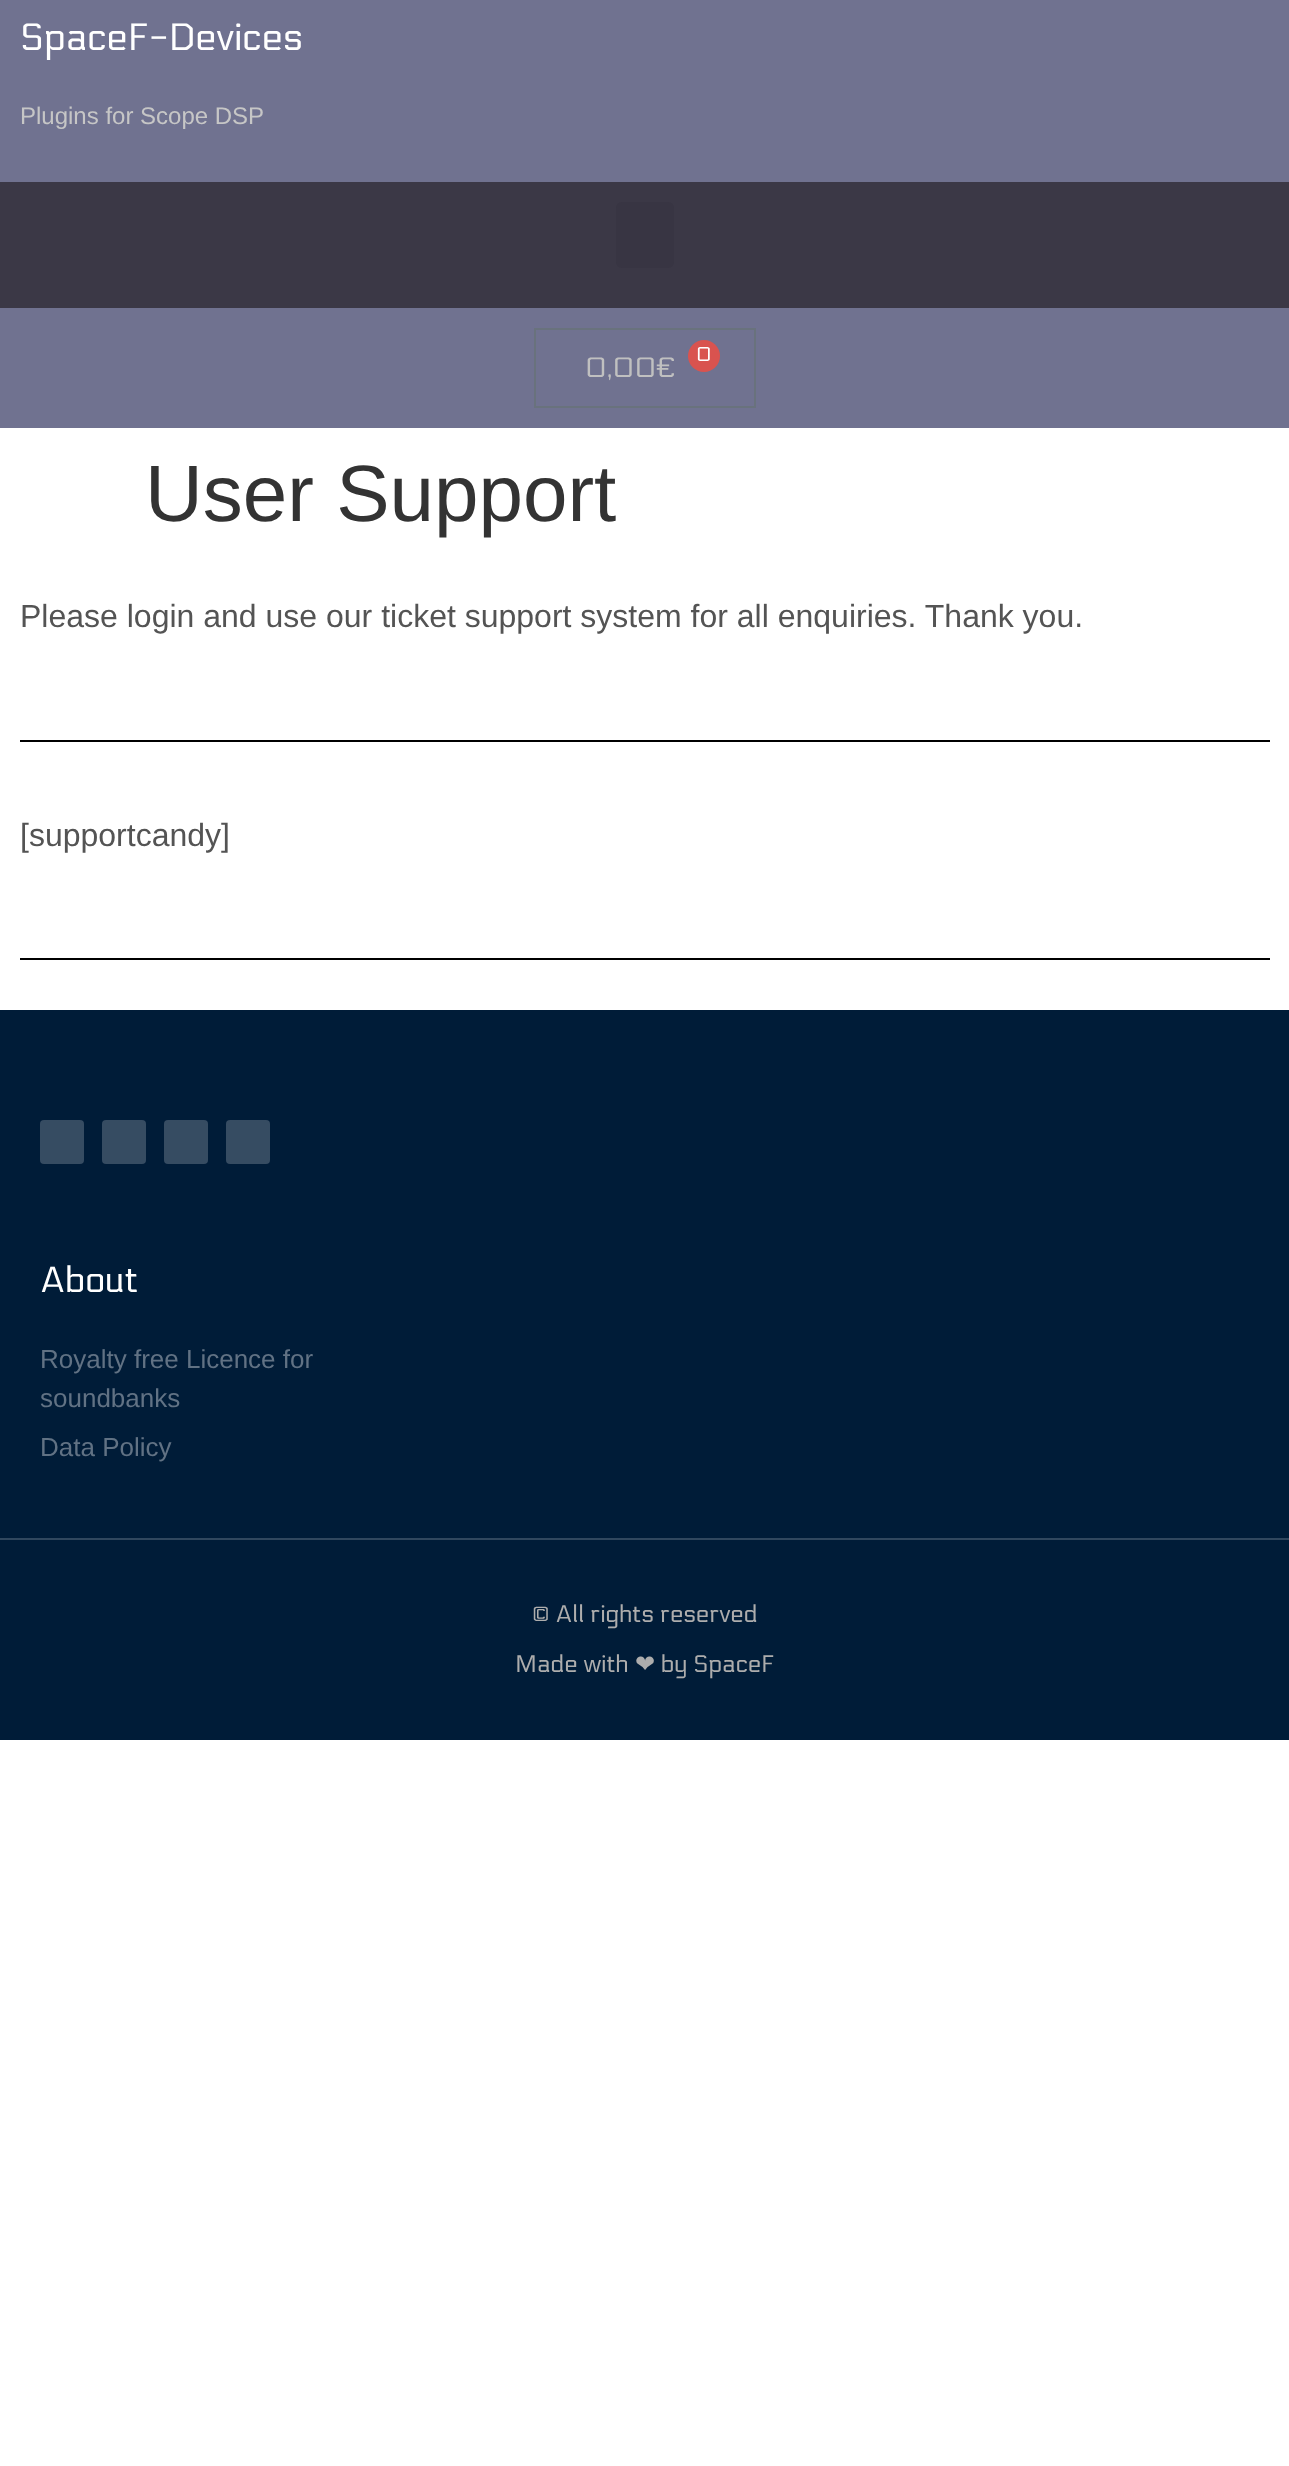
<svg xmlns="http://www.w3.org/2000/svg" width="1289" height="2466">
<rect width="100%" height="100%" fill="#fff"/>
<rect width="1289" height="428" fill="#707290"/>
<text x="20" y="50" style="font-family:Electrolize;font-size:38px;fill:#fff">SpaceF-Devices</text>
<text x="20" y="124" style="font-family:Liberation Sans;font-size:24px;fill:#c6c6c6">Plugins for Scope DSP</text>
<rect y="182" width="1289" height="126" fill="#3b3846"/>
<rect x="616" y="202" width="58" height="66" rx="6" fill="#383543"/>
<rect x="535" y="329" width="220" height="78" fill="none" stroke="#69727d" stroke-width="2"/>
<circle cx="704" cy="356" r="16" fill="#d9534f"/>
<text x="696" y="361" style="font-family:Electrolize;font-size:20px;fill:#fff">0</text>
<text x="585" y="377" style="font-family:Electrolize;font-size:28px;fill:#c0c0c0">0,00€</text>
<text x="145" y="521" style="font-family:Liberation Sans;font-size:80px;fill:#333">User Support</text>
<text x="20" y="627" style="font-family:Liberation Sans;font-size:32px;fill:#545454">Please login and use our ticket support system for all enquiries. Thank you.</text>
<rect x="20" y="740" width="1250" height="2" fill="#000"/>
<text x="20" y="846" style="font-family:Liberation Sans;font-size:32px;fill:#545454">[supportcandy]</text>
<rect x="20" y="958" width="1250" height="2" fill="#000"/>
<rect y="1010" width="1289" height="528" fill="#001c38"/>
<rect x="40" y="1120" width="44" height="44" rx="4" fill="#364c62"/>
<rect x="102" y="1120" width="44" height="44" rx="4" fill="#364c62"/>
<rect x="164" y="1120" width="44" height="44" rx="4" fill="#364c62"/>
<rect x="226" y="1120" width="44" height="44" rx="4" fill="#364c62"/>
<text x="40" y="1292" style="font-family:Electrolize;font-size:36px;fill:#fff">About</text>
<text x="40" y="1368" style="font-family:Liberation Sans;font-size:26px;fill:#617284">Royalty free Licence for</text>
<text x="40" y="1407" style="font-family:Liberation Sans;font-size:26px;fill:#617284">soundbanks</text>
<text x="40" y="1456" style="font-family:Liberation Sans;font-size:26px;fill:#617284">Data Policy</text>
<rect y="1540" width="1289" height="200" fill="#001c38"/>
<rect y="1538" width="1289" height="2" fill="#30475e"/>
<text x="532" y="1622" style="font-family:Electrolize;font-size:24px;fill:#adadad">© All rights reserved</text>
<text x="515" y="1672" style="font-family:Electrolize;font-size:24px;fill:#adadad">Made with</text>
<text x="635" y="1672" style="font-family:DejaVu Sans;font-size:24px;fill:#adadad">❤</text>
<text x="661" y="1672" style="font-family:Electrolize;font-size:24px;fill:#adadad">by SpaceF</text>
</svg>
